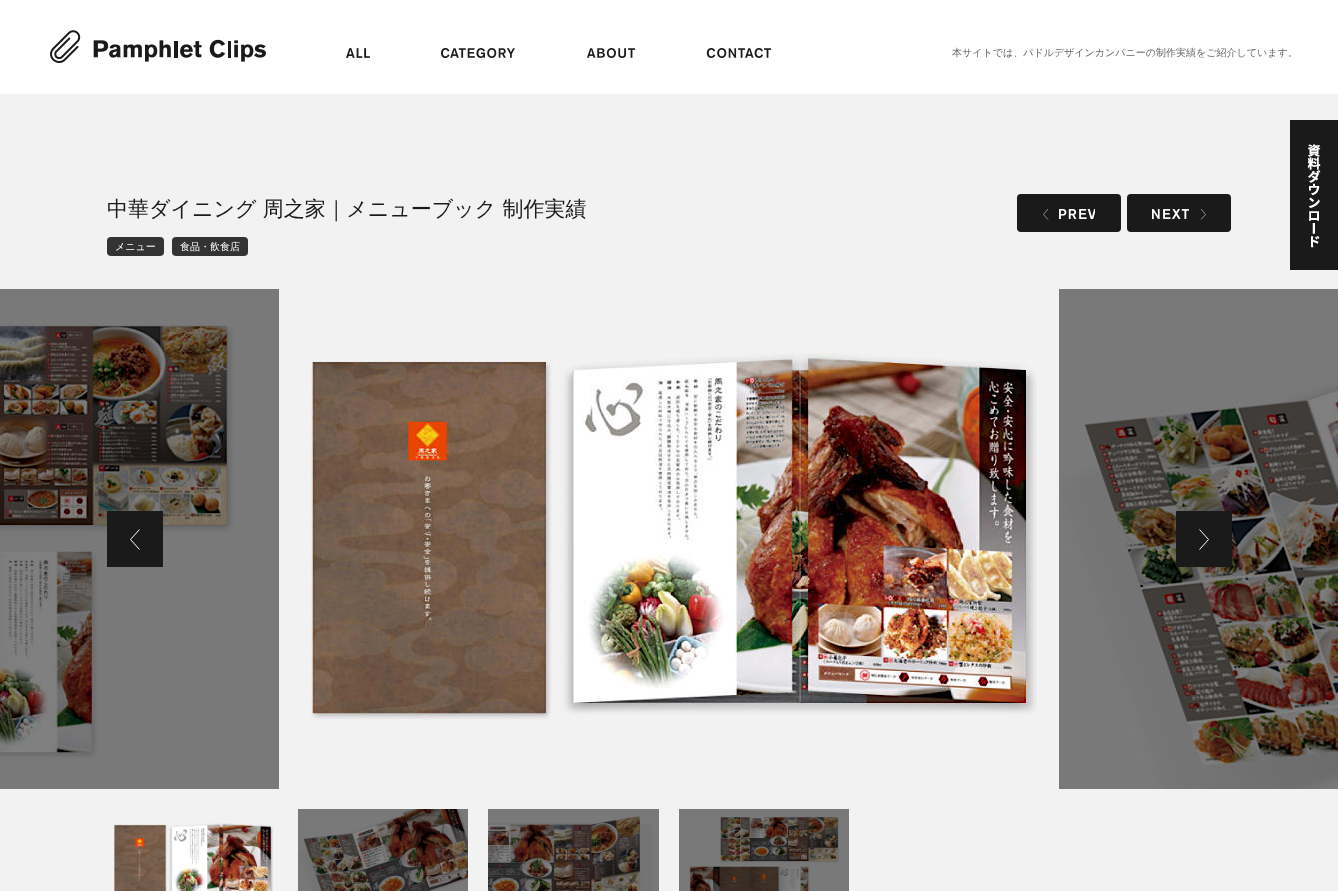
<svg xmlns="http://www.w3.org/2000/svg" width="1338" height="891">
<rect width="100%" height="100%" fill="#fff"/>
<image x="50" y="30" width="216" height="33" href="media/1.png"/>
<image x="346" y="48" width="24" height="10" href="media/2.png"/>
<image x="441" y="48" width="74" height="10" href="media/3.png"/>
<image x="587" y="48" width="49" height="10" href="media/4.png"/>
<image x="706" y="48" width="66" height="10" href="media/5.png"/>
<text x="952" y="56" style="font-family:WenQuanYi Zen Hei;font-size:10px;font-weight:500;fill:#666">本サイトでは、パドルデザインカンパニーの制作実績をご紹介しています。</text>
<rect y="94" width="1338" height="797" fill="#f2f2f2"/>
<rect x="679" y="809" width="170" height="82" fill="#797979"/>
<rect x="488" y="809" width="171" height="82" fill="#797979"/>
<rect x="1059" y="289" width="279" height="500" fill="#797979"/>
<rect y="289" width="279" height="500" fill="#797979"/>
<text x="107" y="216" style="font-family:WenQuanYi Zen Hei;font-size:21px;font-weight:500;fill:#1a1a1a">中華ダイニング 周之家｜メニューブック 制作実績</text>
<rect x="107" y="237" width="57" height="19" rx="4" fill="#333"/>
<text x="115" y="250" style="font-family:WenQuanYi Zen Hei;font-size:10px;font-weight:500;fill:#fff">メニュー</text>
<rect x="172" y="237" width="76" height="19" rx="4" fill="#333"/>
<text x="180" y="250" style="font-family:WenQuanYi Zen Hei;font-size:10px;font-weight:500;fill:#fff">食品・飲食店</text>
<rect x="1017" y="194" width="104" height="38" rx="4" fill="#1a1a1a"/>
<path d="M1048 209l-4.5 5.5l4.5 5" fill="none" stroke="#fff" stroke-width="0.5"/>
<image x="1059" y="209" width="36" height="10" href="media/6.png"/>
<rect x="1127" y="194" width="104" height="38" rx="4" fill="#1a1a1a"/>
<image x="1152" y="209" width="37" height="10" href="media/7.png"/>
<path d="M1201 219.5l4.5-5l-4.5-5.5" fill="none" stroke="#fff" stroke-width="0.5"/>
<image x="0" y="321" width="234" height="438" href="media/8.png"/>
<image x="311" y="353" width="726" height="368" href="media/9.png"/>
<image x="1062" y="382" width="276" height="407" href="media/10.png"/>
<rect x="107" y="511" width="56" height="56" fill="#1a1a1a"/>
<path d="M139.5 529.5l-9 10l9 10" fill="none" stroke="#fff"/>
<rect x="1176" y="511" width="56" height="56" fill="#1a1a1a"/>
<path d="M1199.5 549.5l9-10l-9-10" fill="none" stroke="#fff"/>
<image x="114" y="823" width="159" height="68" href="media/11.png"/>
<image x="298" y="809" width="170" height="82" href="media/12.png"/>
<image x="488" y="816" width="166" height="75" href="media/13.png"/>
<image x="689" y="816" width="150" height="75" href="media/14.png"/>
<image x="1290" y="120" width="48" height="150" href="media/15.png"/>
</svg>
